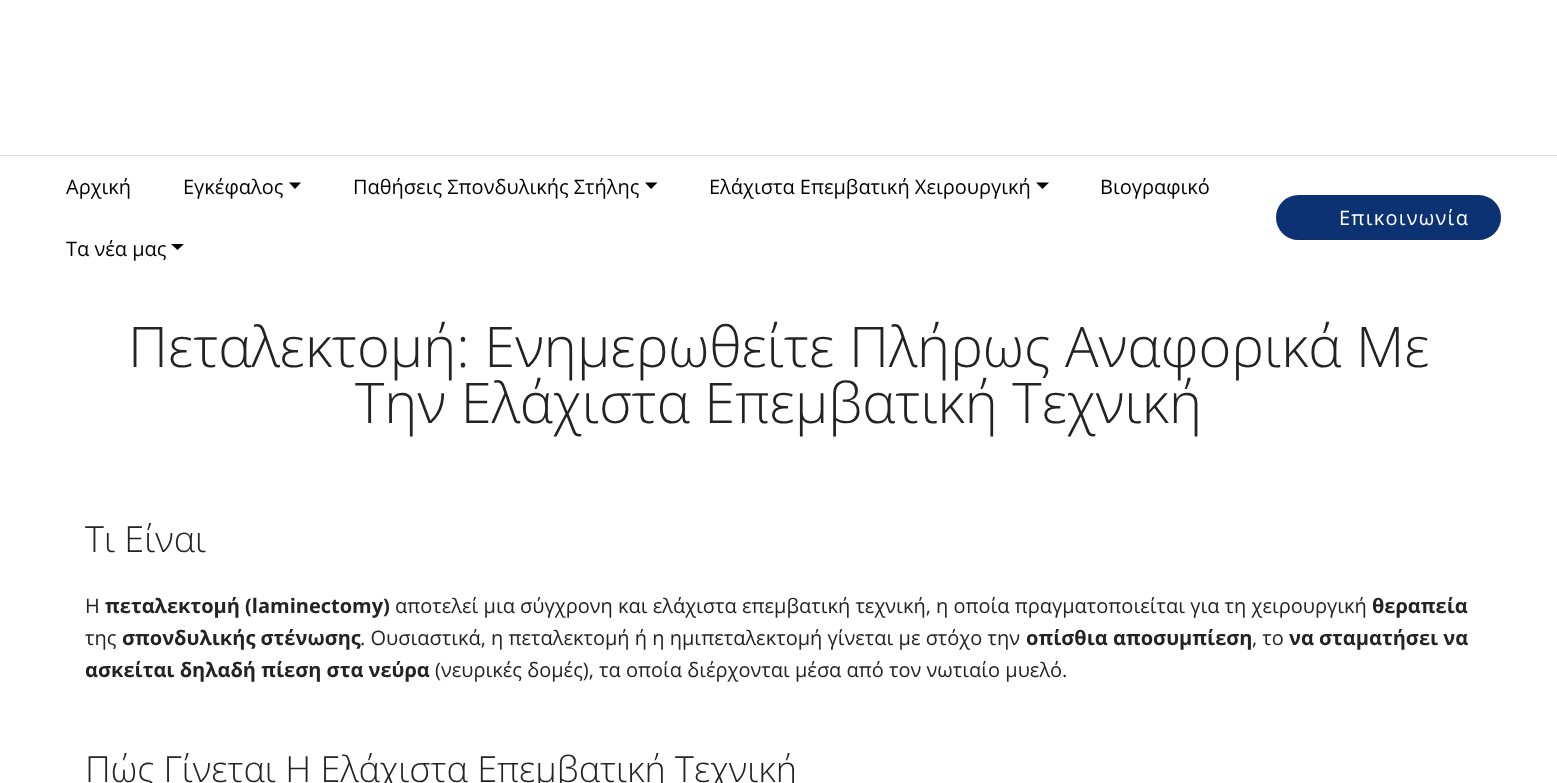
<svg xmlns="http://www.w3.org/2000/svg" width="1557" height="783">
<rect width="100%" height="100%" fill="#fff"/>
<rect y="155" width="1557" height="1" fill="#e0e0e0"/>
<text x="66" y="194" style="font-family:Open Sans;font-size:20px;fill:#000">Αρχική</text>
<text x="183" y="194" style="font-family:Open Sans;font-size:20px;fill:#000">Εγκέφαλος</text>
<path d="M289 182.5h12l-6 6.5z" fill="#000"/>
<text x="353" y="194" style="font-family:Open Sans;font-size:20px;fill:#000">Παθήσεις Σπονδυλικής Στήλης</text>
<path d="M645 182.5h12.5l-6.5 6.5z" fill="#000"/>
<text x="709" y="194" style="font-family:Open Sans;font-size:20px;fill:#000">Ελάχιστα Επεμβατική Χειρουργική</text>
<path d="M1036 182.5h13l-6.5 6.5z" fill="#000"/>
<text x="1100" y="194" style="font-family:Open Sans;font-size:20px;fill:#000">Βιογραφικό</text>
<text x="66" y="256" style="font-family:Open Sans;font-size:20px;fill:#000">Τα νέα μας</text>
<path d="M171 244h13l-6.5 6z" fill="#000"/>
<rect x="1277.5" y="196.5" width="222" height="42" rx="21" fill="#0c3274" stroke="#0c3274" stroke-width="3"/>
<text x="1339" y="225" style="font-family:Open Sans;font-size:20px;letter-spacing:1.25px;fill:#fff">Επικοινωνία</text>
<text x="128" y="367" style="font-family:Open Sans;font-size:56px;font-weight:300;fill:#232323">Πεταλεκτομή: Ενημερωθείτε Πλήρως Αναφορικά Με</text>
<text x="355" y="423" style="font-family:Open Sans;font-size:56px;font-weight:300;fill:#232323">Την Ελάχιστα Επεμβατική Τεχνική</text>
<text x="85" y="552" style="font-family:Open Sans;font-size:36px;font-weight:300;fill:#232323">Τι Είναι</text>
<text x="85" y="613" style="font-family:Open Sans;font-size:20px;fill:#232323">Η</text>
<text x="105" y="613" style="font-family:Open Sans;font-size:20px;font-weight:bold;fill:#232323">πεταλεκτομή (laminectomy)</text>
<text x="395" y="613" style="font-family:Open Sans;font-size:20px;fill:#232323">αποτελεί μια σύγχρονη και ελάχιστα επεμβατική τεχνική, η οποία πραγματοποιείται για τη χειρουργική</text>
<text x="1372" y="613" style="font-family:Open Sans;font-size:20px;font-weight:bold;fill:#232323">θεραπεία</text>
<text x="85" y="645" style="font-family:Open Sans;font-size:20px;fill:#232323">της</text>
<text x="122" y="645" style="font-family:Open Sans;font-size:20px;font-weight:bold;fill:#232323">σπονδυλικής στένωσης</text>
<text x="360" y="645" style="font-family:Open Sans;font-size:20px;fill:#232323">. Ουσιαστικά, η πεταλεκτομή ή η ημιπεταλεκτομή γίνεται με στόχο την</text>
<text x="1026" y="645" style="font-family:Open Sans;font-size:20px;font-weight:bold;fill:#232323">οπίσθια αποσυμπίεση</text>
<text x="1252" y="645" style="font-family:Open Sans;font-size:20px;fill:#232323">, το</text>
<text x="1289" y="645" style="font-family:Open Sans;font-size:20px;font-weight:bold;fill:#232323">να σταματήσει να</text>
<text x="85" y="677" style="font-family:Open Sans;font-size:20px;font-weight:bold;fill:#232323">ασκείται δηλαδή πίεση στα νεύρα</text>
<text x="435" y="677" style="font-family:Open Sans;font-size:20px;fill:#232323">(νευρικές δομές), τα οποία διέρχονται μέσα από τον νωτιαίο μυελό.</text>
<text x="85" y="782" style="font-family:Open Sans;font-size:36px;font-weight:300;fill:#232323">Πώς Γίνεται Η Ελάχιστα Επεμβατική Τεχνική</text>
</svg>
